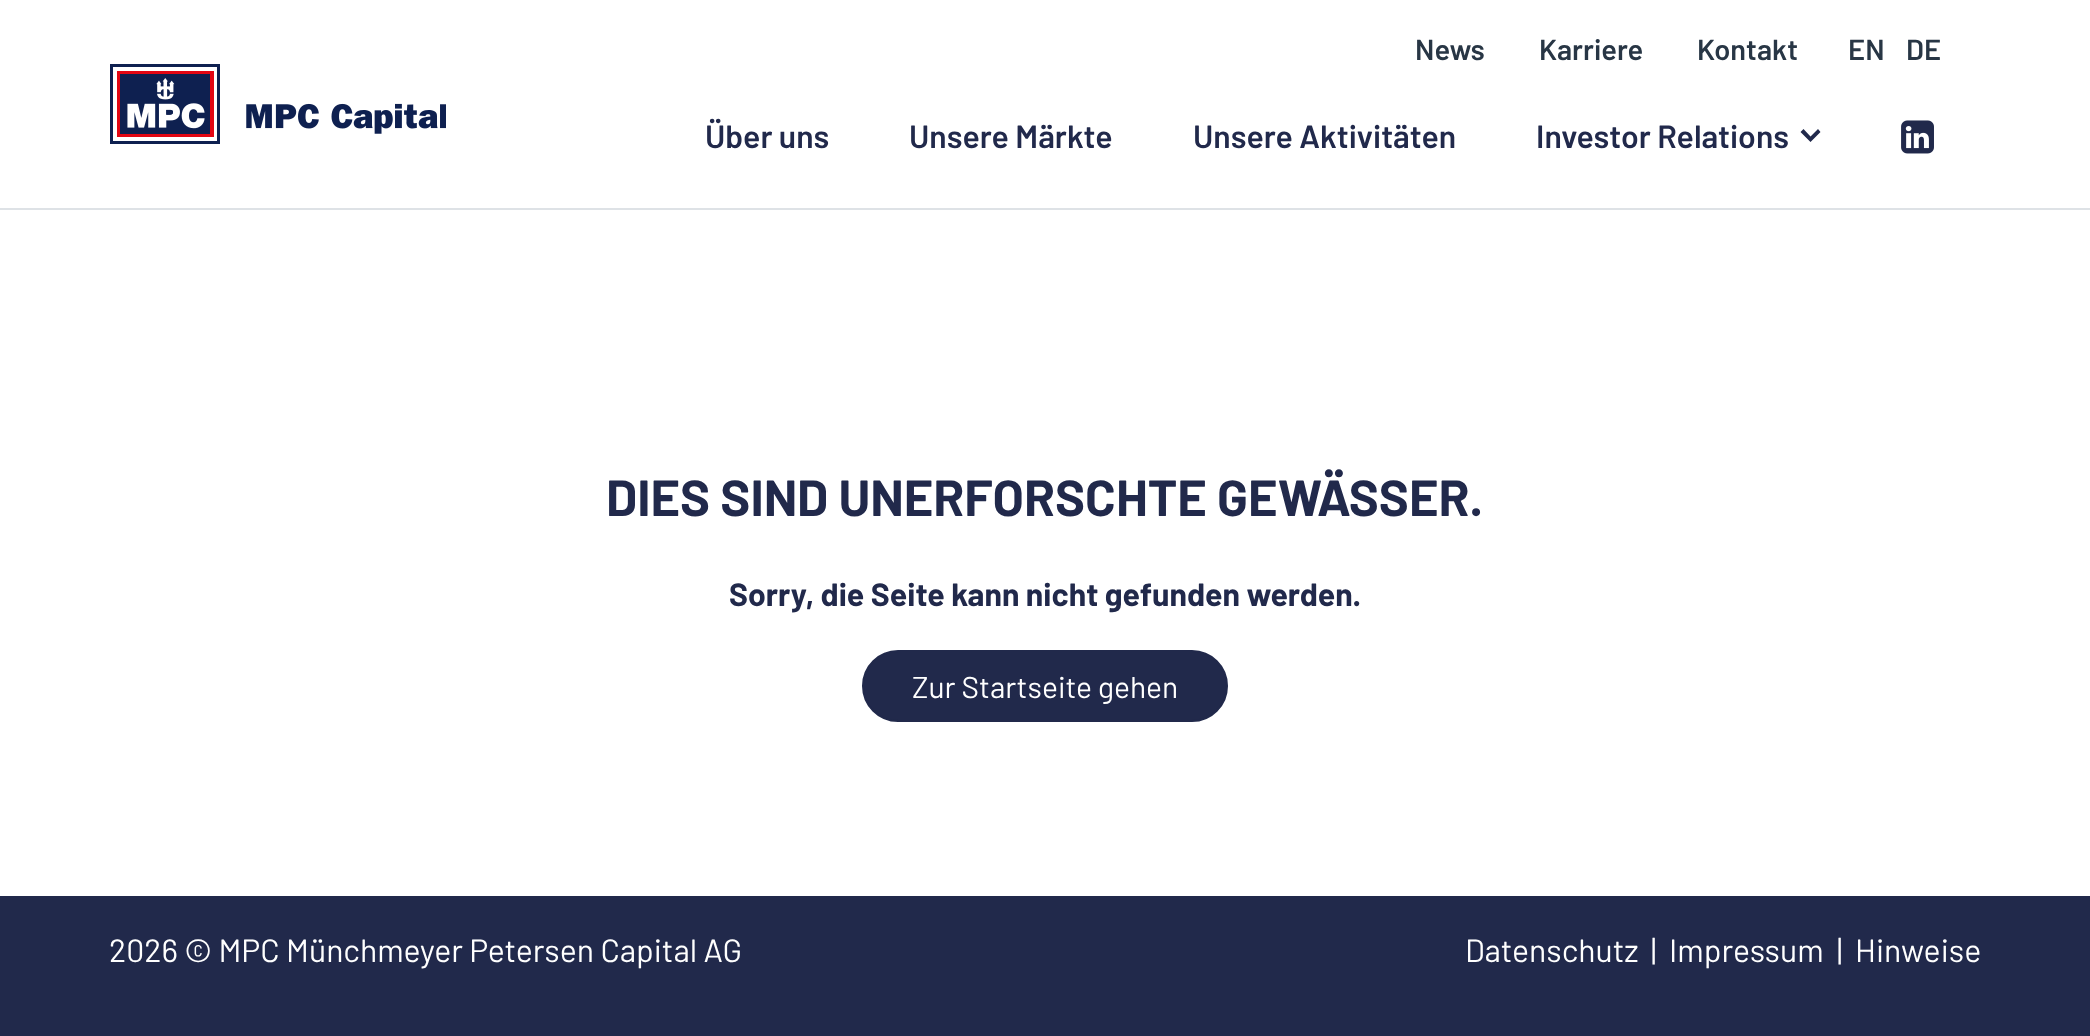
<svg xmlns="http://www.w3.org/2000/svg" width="2090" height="1036">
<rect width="100%" height="100%" fill="#fff"/>
<rect y="208" width="2090" height="2" fill="#dee2e6"/>
<image x="110" y="64" width="336" height="80" href="media/1.png"/>
<text x="1415" y="60" style="font-family:Barlow;font-size:29px;font-weight:600;fill:#283645">News</text>
<text x="1539" y="60" style="font-family:Barlow;font-size:29px;font-weight:600;fill:#283645">Karriere</text>
<text x="1697" y="60" style="font-family:Barlow;font-size:29px;font-weight:600;fill:#283645">Kontakt</text>
<text x="1848" y="60" style="font-family:Barlow;font-size:29px;font-weight:600;fill:#283645">EN</text>
<text x="1906" y="60" style="font-family:Barlow;font-size:29px;font-weight:600;fill:#283645">DE</text>
<text x="705" y="148" style="font-family:Barlow;font-size:32px;font-weight:600;fill:#21294b">Über uns</text>
<text x="909" y="148" style="font-family:Barlow;font-size:32px;font-weight:600;fill:#21294b">Unsere Märkte</text>
<text x="1193" y="148" style="font-family:Barlow;font-size:32px;font-weight:600;fill:#21294b">Unsere Aktivitäten</text>
<text x="1536" y="148" style="font-family:Barlow;font-size:32px;font-weight:600;fill:#21294b">Investor Relations</text>
<path d="M1818 129l2.5 3l-10 10l-10-10l3-3l7 7.5z" fill="#21294b"/>
<image x="1901" y="120" width="33" height="34" href="media/2.png"/>
<text x="606" y="516" style="font-family:Barlow;font-size:50.6px;font-weight:bold;fill:#21294b">DIES SIND UNERFORSCHTE GEWÄSSER.</text>
<text x="729" y="606" style="font-family:Barlow;font-size:32px;font-weight:bold;fill:#21294b">Sorry, die Seite kann nicht gefunden werden.</text>
<rect x="863" y="651" width="364" height="70" rx="35" fill="#21294b" stroke="#21294b" stroke-width="2"/>
<text x="912" y="698" style="font-family:Barlow;font-size:30px;fill:#fff">Zur Startseite gehen</text>
<rect y="896" width="2090" height="140" fill="#21294b"/>
<text x="109" y="962" style="font-family:Barlow;font-size:32px;fill:#fff">2026 © MPC Münchmeyer Petersen Capital AG</text>
<text x="1465" y="962" style="font-family:Barlow;font-size:32px;fill:#fff">Datenschutz</text>
<text x="1651" y="962" style="font-family:Barlow;font-size:32px;fill:#fff">|</text>
<text x="1669" y="962" style="font-family:Barlow;font-size:32px;fill:#fff">Impressum</text>
<text x="1837" y="962" style="font-family:Barlow;font-size:32px;fill:#fff">|</text>
<text x="1855" y="962" style="font-family:Barlow;font-size:32px;fill:#fff">Hinweise</text>
</svg>
